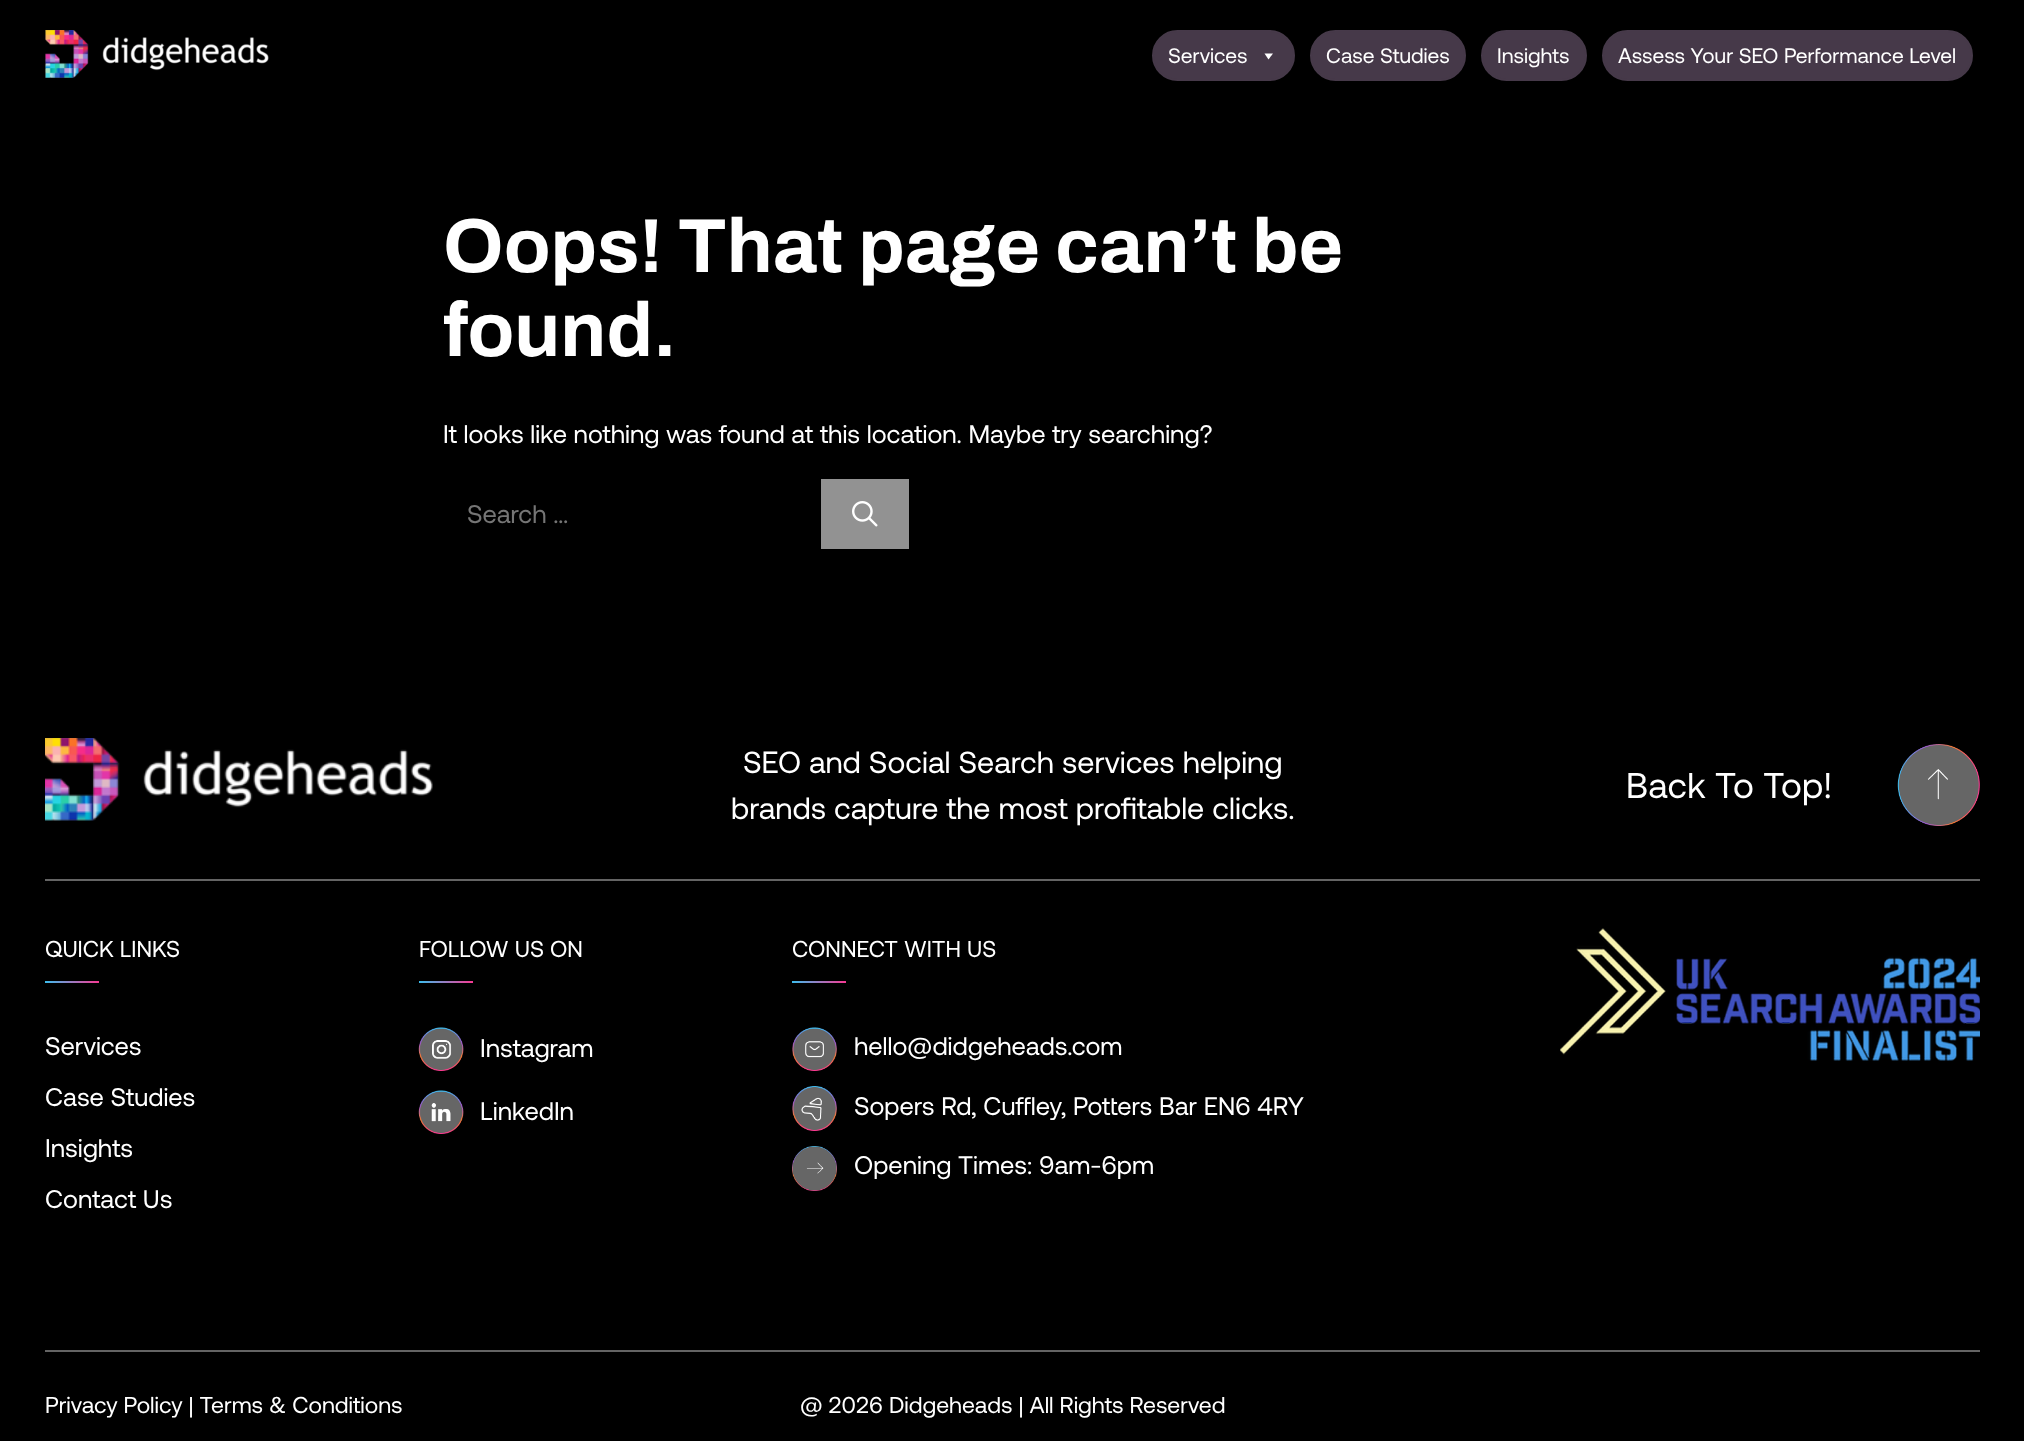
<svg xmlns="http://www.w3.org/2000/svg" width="2024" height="1441">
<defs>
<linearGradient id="g1" gradientUnits="userSpaceOnUse" x1="45" y1="982" x2="99" y2="982"><stop offset="0" stop-color="#3cbded"/><stop offset="1" stop-color="#f83993"/></linearGradient>
<linearGradient id="g2" gradientUnits="userSpaceOnUse" x1="419" y1="982" x2="473" y2="982"><stop offset="0" stop-color="#3cbded"/><stop offset="1" stop-color="#f83993"/></linearGradient>
<linearGradient id="g3" gradientUnits="userSpaceOnUse" x1="792" y1="982" x2="846" y2="982"><stop offset="0" stop-color="#3cbded"/><stop offset="1" stop-color="#f83993"/></linearGradient>
</defs>
<rect width="100%" height="100%" fill="#000"/>
<image x="45" y="30" width="224" height="48" href="media/1.png"/>
<rect x="1153" y="31" width="141" height="49" rx="24.5" fill="#463949" stroke="#463949" stroke-width="2"/>
<text x="1168" y="63" style="font-family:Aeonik;font-size:21px;fill:#fff">Services</text>
<path d="M1273 53.5l-4.5 6l-4-6z" fill="#fff"/>
<rect x="1311" y="31" width="154" height="49" rx="24.5" fill="#463949" stroke="#463949" stroke-width="2"/>
<text x="1326" y="63" style="font-family:Aeonik;font-size:21px;fill:#fff">Case Studies</text>
<rect x="1482" y="31" width="104" height="49" rx="24.5" fill="#463949" stroke="#463949" stroke-width="2"/>
<text x="1497" y="63" style="font-family:Aeonik;font-size:21px;fill:#fff">Insights</text>
<rect x="1603" y="31" width="369" height="49" rx="24.5" fill="#463949" stroke="#463949" stroke-width="2"/>
<text x="1618" y="63" style="font-family:Aeonik;font-size:21px;fill:#fff">Assess Your SEO Performance Level</text>
<text x="443" y="272" style="font-family:Archivo;font-size:76.5px;font-weight:bold;fill:#fff">Oops! That page can’t be</text>
<text x="443" y="356" style="font-family:Archivo;font-size:76.5px;font-weight:bold;fill:#fff">found.</text>
<text x="443" y="443" style="font-family:Aeonik;font-size:25.5px;fill:#fff">It looks like nothing was found at this location. Maybe try searching?</text>
<text x="467" y="523" style="font-family:Aeonik;font-size:25.5px;fill:#757575">Search …</text>
<rect x="821" y="479" width="88" height="70" fill="#929292"/>
<image x="852" y="501" width="26" height="26" href="media/2.png"/>
<rect x="45" y="879" width="1935" height="2" fill="#646464"/>
<image x="45" y="738" width="388" height="83" href="media/3.png"/>
<text x="743" y="773" style="font-family:Aeonik;font-size:30.6px;fill:#fff">SEO and Social Search services helping</text>
<text x="731" y="819" style="font-family:Aeonik;font-size:30.6px;fill:#fff">brands capture the most profitable clicks.</text>
<text x="1626" y="798" style="font-family:Aeonik;font-size:35.75px;fill:#fff">Back To Top!</text>
<image x="1897" y="744" width="83" height="82" href="media/4.png"/>
<text x="45" y="957" style="font-family:Aeonik;font-size:23px;fill:#fff">QUICK LINKS</text>
<rect x="45" y="981" width="54" height="2" fill="url(#g1)"/>
<text x="45" y="1055" style="font-family:Aeonik;font-size:25.5px;fill:#fff">Services</text>
<text x="45" y="1106" style="font-family:Aeonik;font-size:25.5px;fill:#fff">Case Studies</text>
<text x="45" y="1157" style="font-family:Aeonik;font-size:25.5px;fill:#fff">Insights</text>
<text x="45" y="1208" style="font-family:Aeonik;font-size:25.5px;fill:#fff">Contact Us</text>
<text x="419" y="957" style="font-family:Aeonik;font-size:23px;fill:#fff">FOLLOW US ON</text>
<rect x="419" y="981" width="54" height="2" fill="url(#g2)"/>
<image x="418" y="1027" width="46" height="44" href="media/5.png"/>
<text x="480" y="1057" style="font-family:Aeonik;font-size:25.5px;fill:#fff">Instagram</text>
<image x="418" y="1090" width="46" height="44" href="media/6.png"/>
<text x="480" y="1120" style="font-family:Aeonik;font-size:25.5px;fill:#fff">LinkedIn</text>
<text x="792" y="957" style="font-family:Aeonik;font-size:23px;fill:#fff">CONNECT WITH US</text>
<rect x="792" y="981" width="54" height="2" fill="url(#g3)"/>
<image x="792" y="1027" width="45" height="44" href="media/7.png"/>
<text x="854" y="1055" style="font-family:Aeonik;font-size:25.5px;fill:#fff">hello@didgeheads.com</text>
<image x="792" y="1086" width="45" height="45" href="media/8.png"/>
<text x="854" y="1115" style="font-family:Aeonik;font-size:25.5px;fill:#fff">Sopers Rd, Cuffley, Potters Bar EN6 4RY</text>
<image x="792" y="1146" width="45" height="45" href="media/9.png"/>
<text x="854" y="1174" style="font-family:Aeonik;font-size:25.5px;fill:#fff">Opening Times: 9am-6pm</text>
<image x="1560" y="928" width="420" height="133" href="media/10.png"/>
<rect x="45" y="1350" width="1935" height="2" fill="#646464"/>
<text x="45" y="1413" style="font-family:Aeonik;font-size:23px;fill:#fff">Privacy Policy | Terms &amp; Conditions</text>
<text x="800" y="1413" style="font-family:Aeonik;font-size:23px;fill:#fff">@ 2026 Didgeheads | All Rights Reserved</text>
</svg>
